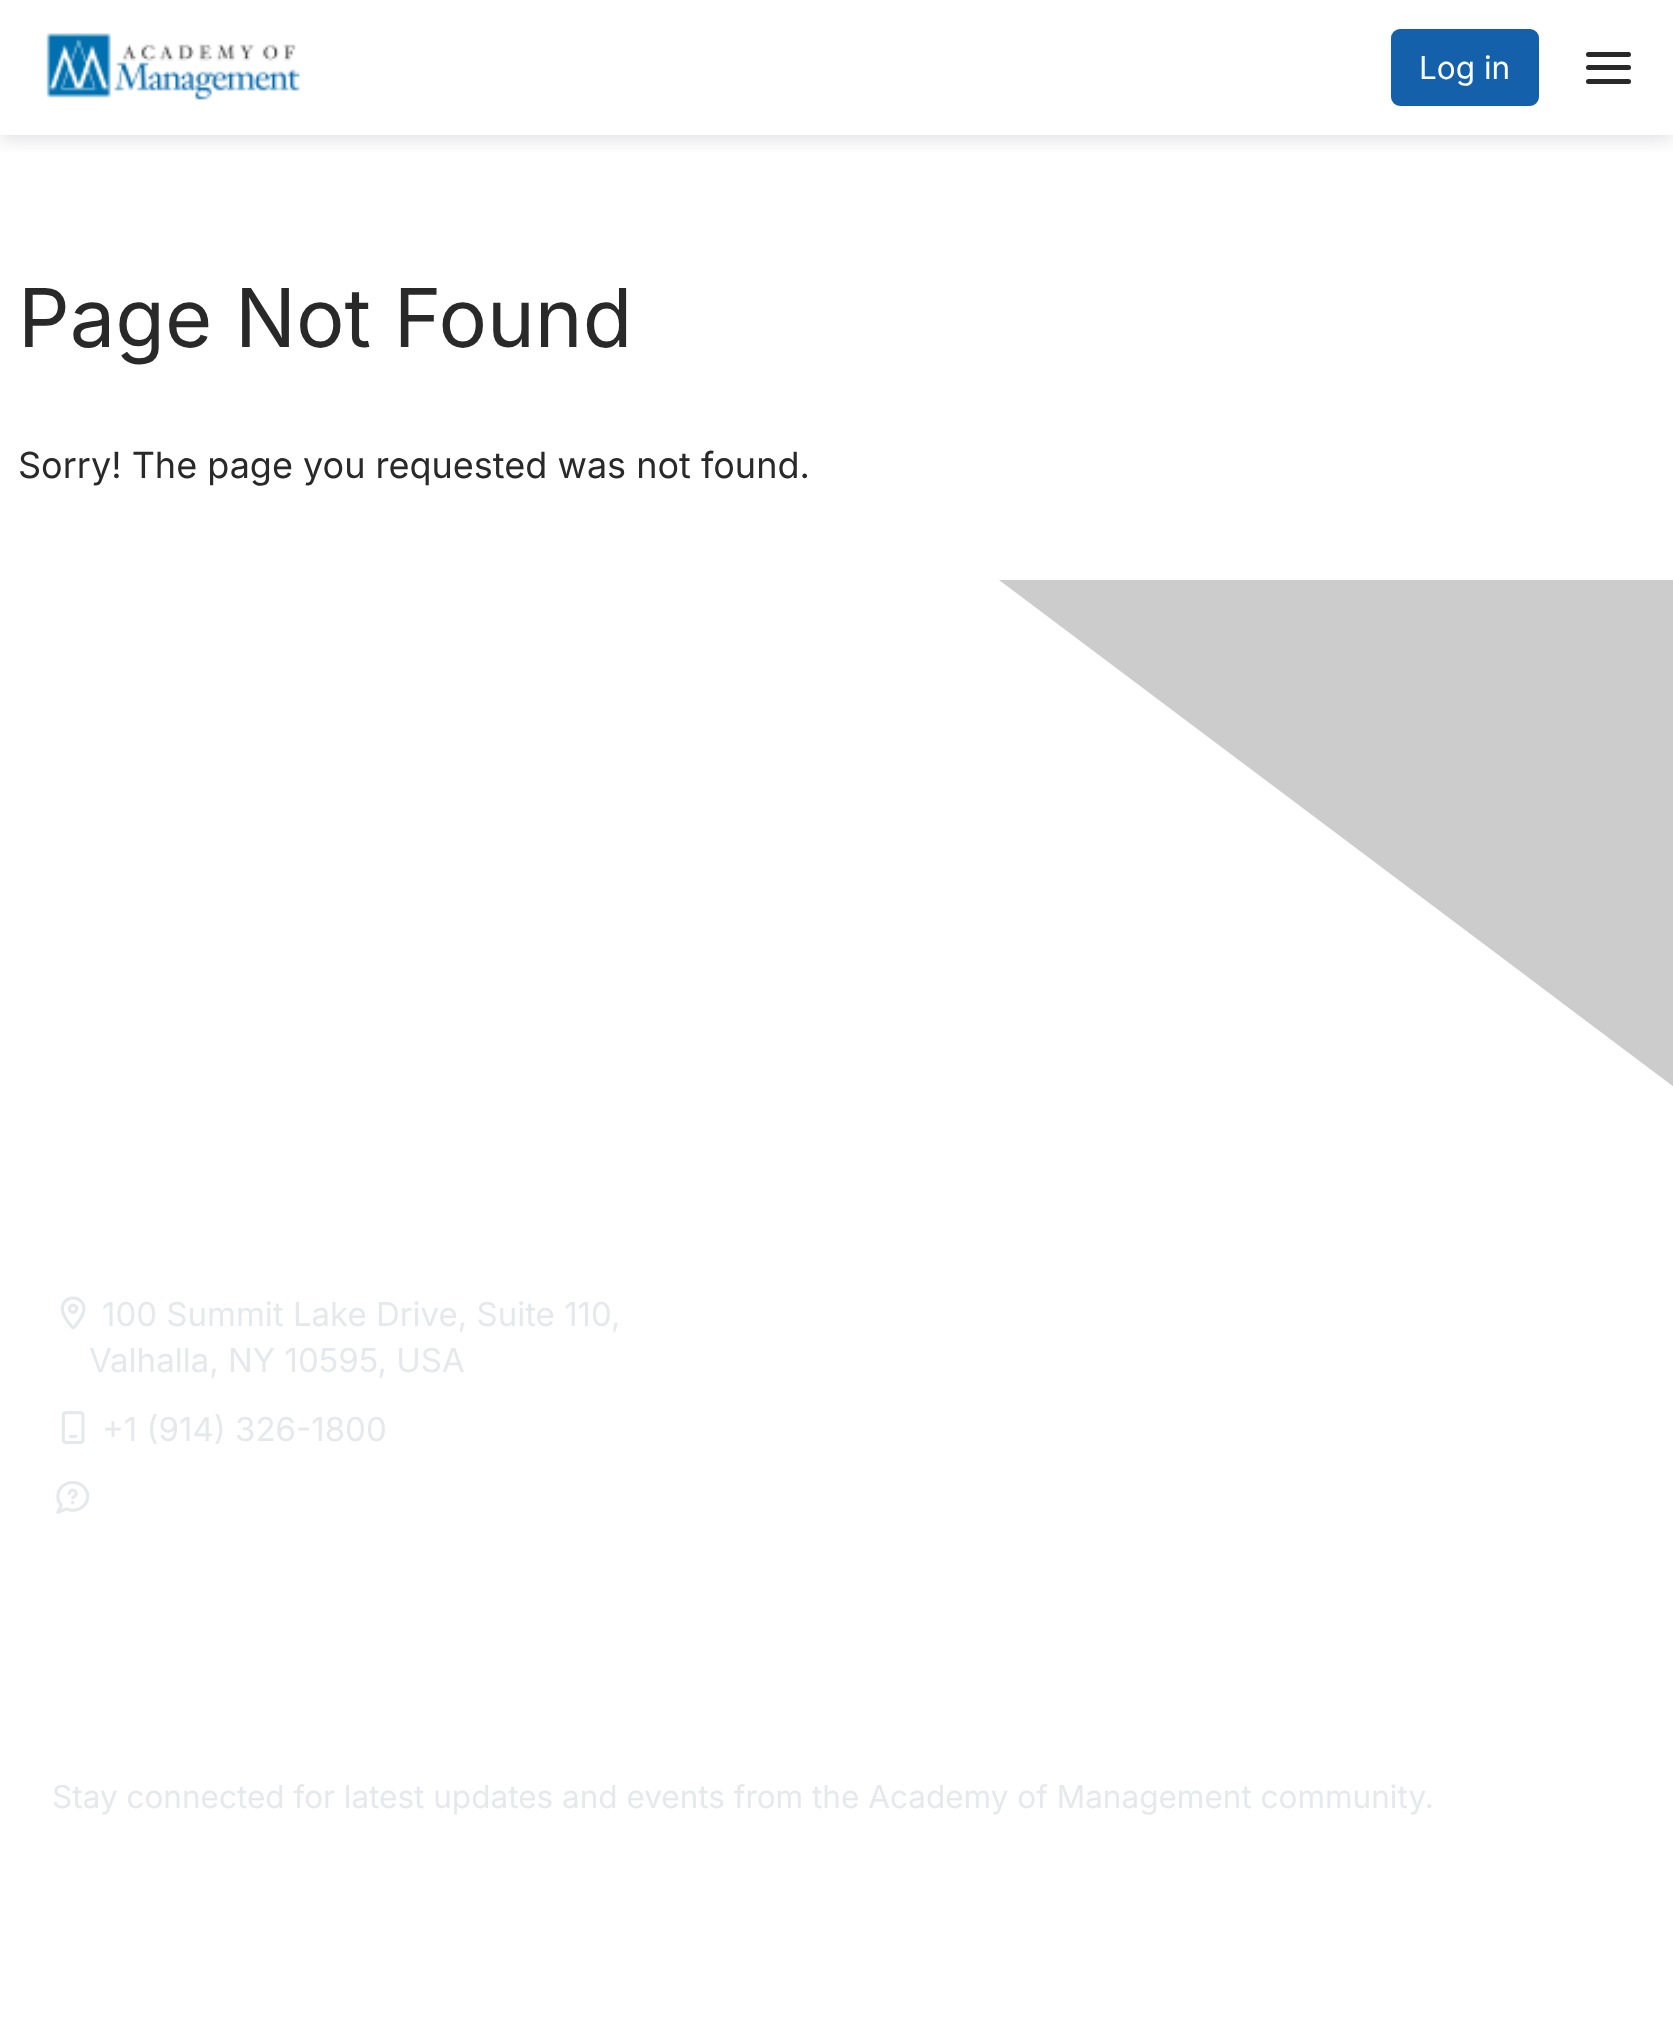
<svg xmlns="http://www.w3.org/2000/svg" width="1673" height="2026">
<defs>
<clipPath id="clip1"><rect x="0" y="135" width="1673" height="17"/></clipPath>
</defs>
<rect width="100%" height="100%" fill="#fff"/>
<g clip-path="url(#clip1)">
<rect y="5" width="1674" height="135" fill="#8387913d" filter="blur(9px)"/>
</g>
<image x="46" y="33" width="254" height="67" href="media/1.png"/>
<rect x="1392" y="30" width="146" height="75" rx="8" fill="#1460aa" stroke="#1460aa" stroke-width="2"/>
<text x="1419" y="79" style="font-family:Inter;font-size:31.5px;fill:#fff">Log in</text>
<rect x="1586" y="52" width="45" height="5" rx="2.5" fill="#292929"/>
<rect x="1586" y="65" width="45" height="5" rx="2.5" fill="#292929"/>
<rect x="1586" y="79" width="45" height="5" rx="2.5" fill="#292929"/>
<text x="18" y="347" style="font-family:Inter;font-size:81px;fill:#292929">Page Not Found</text>
<text x="18" y="478" style="font-family:Inter;font-size:36px;fill:#292929">Sorry! The page you requested was not found.</text>
<path d="M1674 580v507l-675-507z" fill="#ccc"/>
<image x="60" y="1296" width="26" height="34" href="media/2.png"/>
<text x="102" y="1326" style="font-family:Inter;font-size:33px;fill:#e5e9eb">100 Summit Lake Drive, Suite 110,</text>
<text x="89" y="1372" style="font-family:Inter;font-size:33px;fill:#e5e9eb">Valhalla, NY 10595, USA</text>
<image x="61" y="1411" width="24" height="33" href="media/3.png"/>
<text x="102" y="1441" style="font-family:Inter;font-size:33px;fill:#e5e9eb">+1 (914) 326-1800</text>
<image x="56" y="1481" width="34" height="33" href="media/4.png"/>
<text x="52" y="1808" style="font-family:Inter;font-size:31.5px;fill:#e5e9eb">Stay connected for latest updates and events from the Academy of Management community.</text>
</svg>
